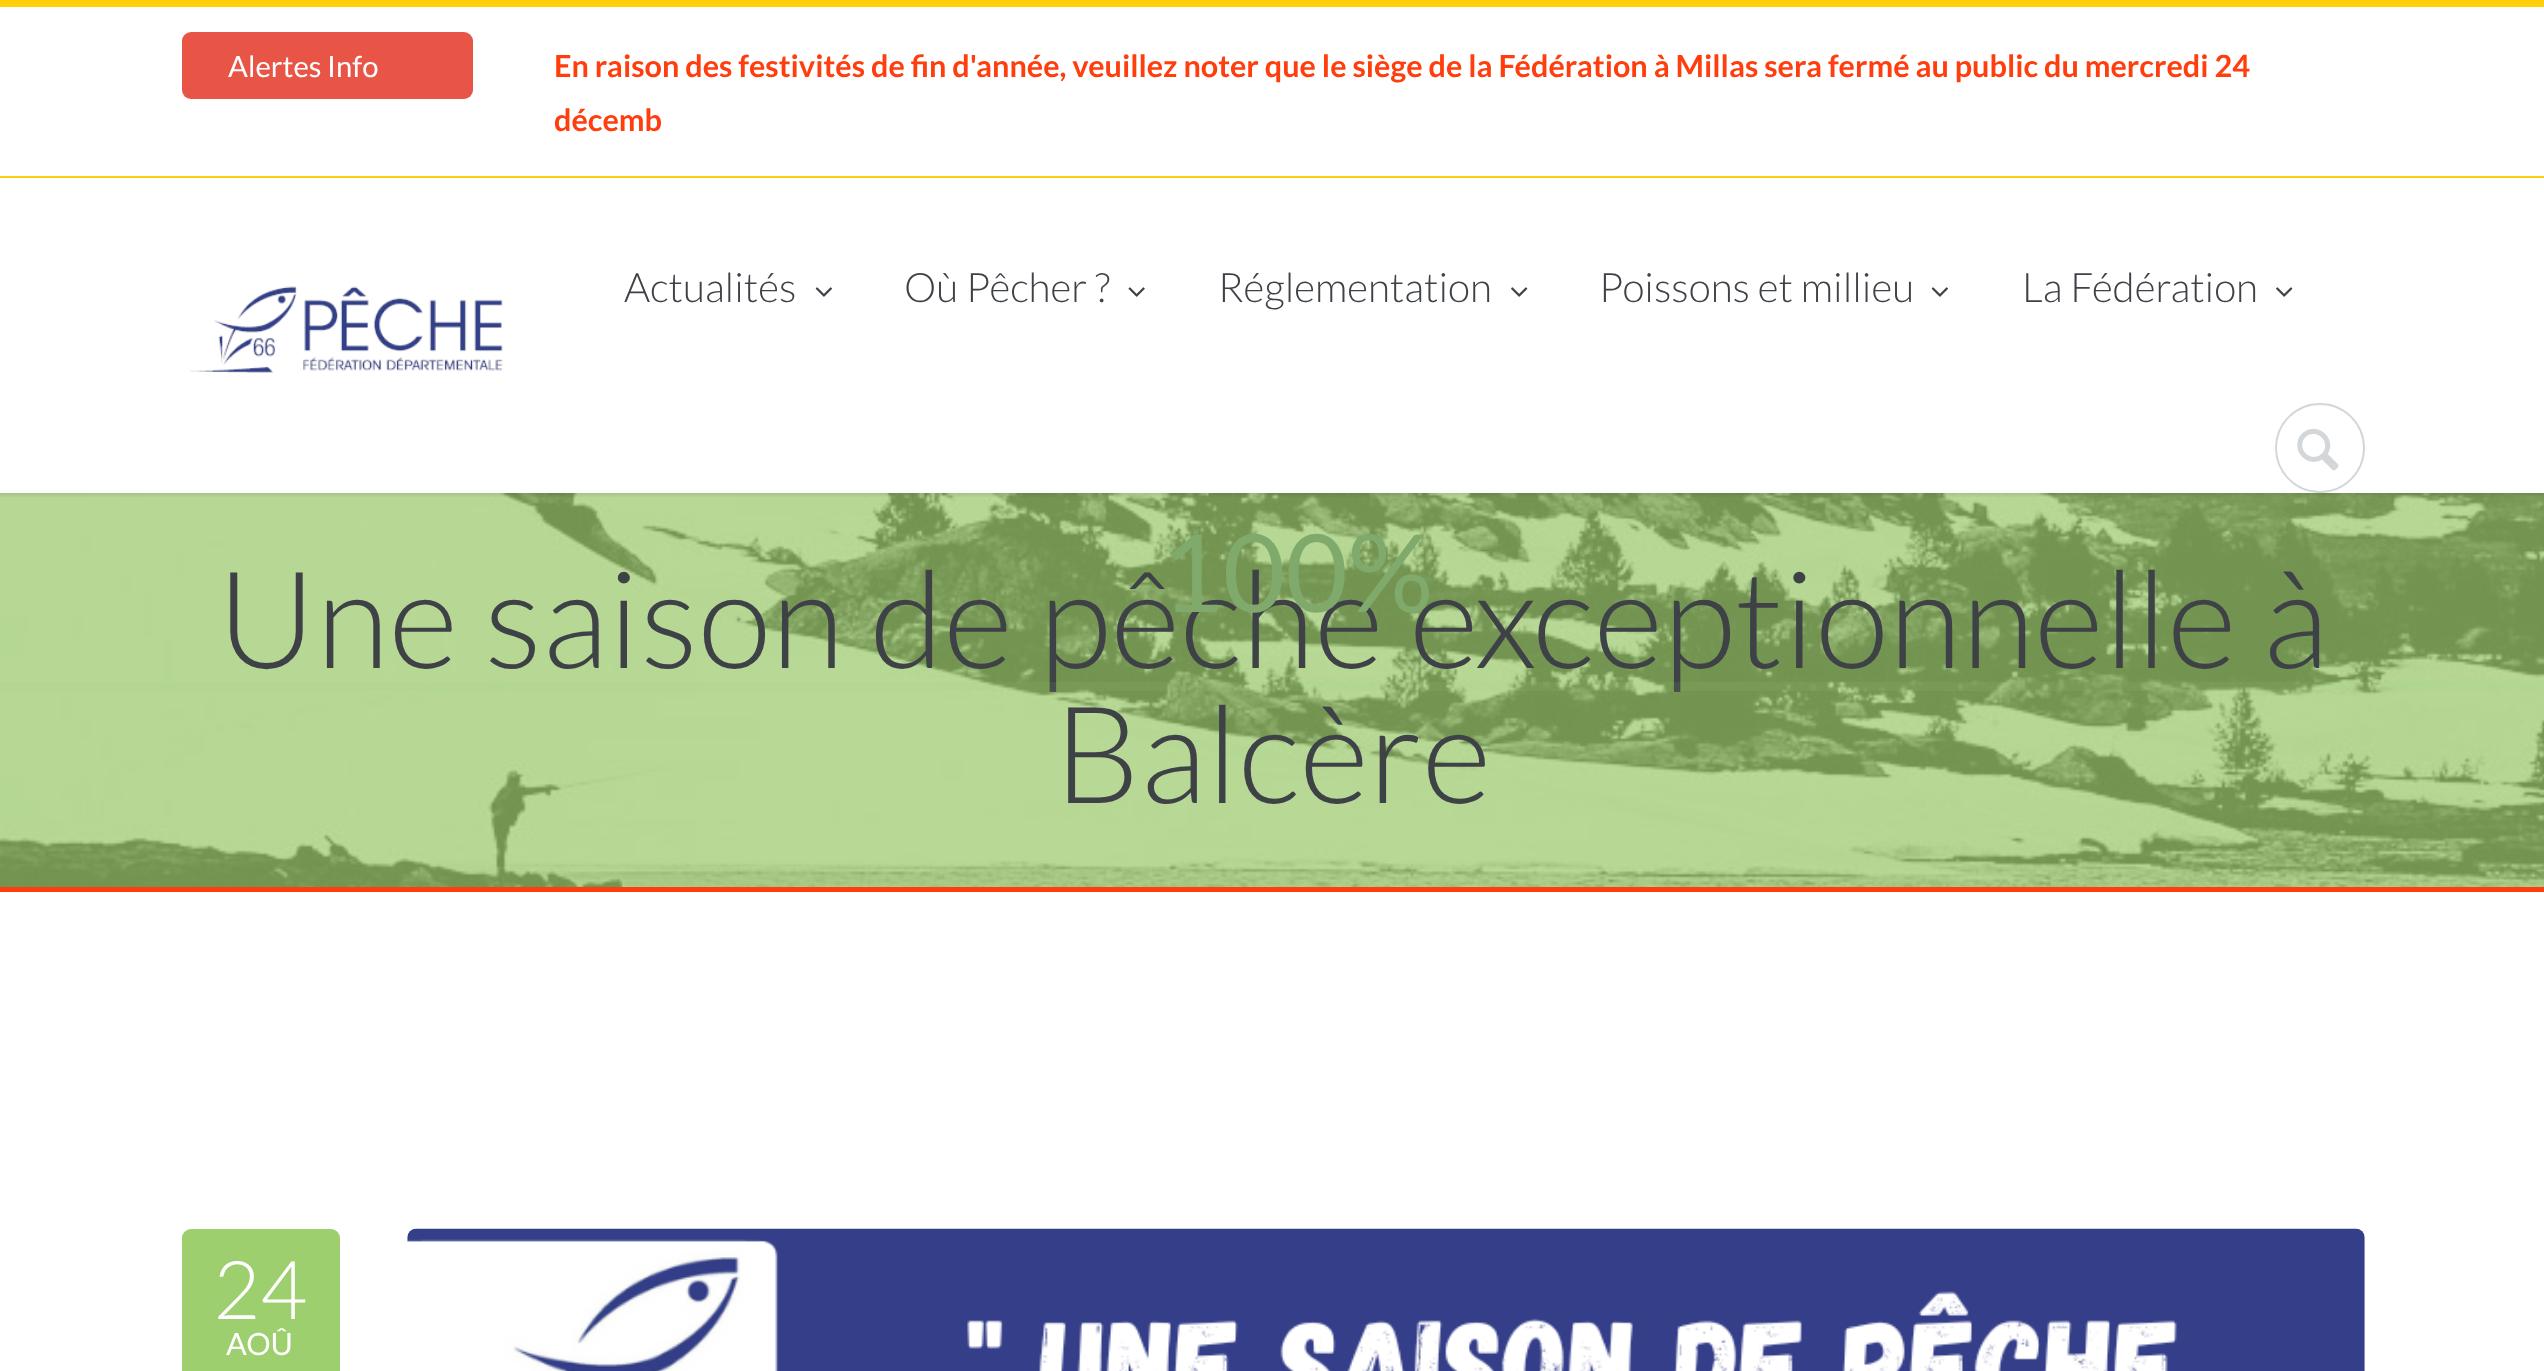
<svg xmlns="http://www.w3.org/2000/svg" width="2544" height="1371">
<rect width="100%" height="100%" fill="#fff"/>
<rect width="2544" height="7" fill="#ffcf0d"/>
<rect x="182" y="32" width="291" height="67" rx="9" fill="#e85546"/>
<text x="228" y="77" style="font-family:Lato;font-size:29.25px;fill:#fff">Alertes Info</text>
<text x="554" y="77" style="font-family:Lato;font-size:30.6px;font-weight:bold;fill:#ff3d0d">En raison des festivités de fin d'année, veuillez noter que le siège de la Fédération à Millas sera fermé au public du mercredi 24</text>
<text x="554" y="131" style="font-family:Lato;font-size:30.6px;font-weight:bold;fill:#ff3d0d">décemb</text>
<rect y="176" width="2544" height="2" fill="#ffcf0d"/>
<image x="190" y="286" width="313" height="87" href="media/1.png"/>
<text x="624" y="302" style="font-family:Lato;font-size:40.5px;font-weight:300;fill:#3e4247">Actualités</text>
<image x="815" y="287" width="17" height="10" href="media/2.png"/>
<text x="904" y="302" style="font-family:Lato;font-size:40.5px;font-weight:300;fill:#3e4247">Où Pêcher ?</text>
<image x="1128" y="287" width="17" height="10" href="media/3.png"/>
<text x="1218" y="302" style="font-family:Lato;font-size:40.5px;font-weight:300;fill:#3e4247">Réglementation</text>
<image x="1511" y="287" width="17" height="10" href="media/4.png"/>
<text x="1599" y="302" style="font-family:Lato;font-size:40.5px;font-weight:300;fill:#3e4247">Poissons et millieu</text>
<image x="1931" y="287" width="17" height="10" href="media/2.png"/>
<text x="2022" y="302" style="font-family:Lato;font-size:40.5px;font-weight:300;fill:#3e4247">La Fédération</text>
<image x="2276" y="287" width="17" height="10" href="media/4.png"/>
<circle cx="2320" cy="448" r="44" fill="none" stroke="#d3d7da" stroke-width="2"/>
<image x="2297" y="428" width="42" height="43" href="media/5.png"/>
<image x="0" y="493" width="2544" height="394" href="media/7.png"/>
<image x="0" y="493" width="2544" height="4" href="media/6.png"/>
<rect y="887" width="2544" height="5" fill="#ff3d0d"/>
<text x="217" y="668" style="font-family:Lato;font-size:135px;font-weight:300;fill:#3e4247">Une saison de pêche exceptionnelle à</text>
<text x="1054" y="803" style="font-family:Lato;font-size:135px;font-weight:300;fill:#3e4247">Balcère</text>
<rect x="182" y="1229" width="158" height="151" rx="9" fill="#9ecf6e"/>
<text x="213" y="1319" style="font-family:Lato;font-size:81px;font-weight:300;fill:#fff">24</text>
<text x="226" y="1355" style="font-family:Lato;font-size:30.6px;fill:#fff">AOÛ</text>
<image x="407" y="1228" width="1958" height="143" href="media/8.png"/>
<text x="1160" y="612" style="font-family:Lato;font-size:108px;fill:#80a96c">100%</text>
<rect y="682" width="2544" height="9" fill="#35eef60d"/>
<rect y="682" width="2544" height="9" fill="#ffcc000d"/>
</svg>
